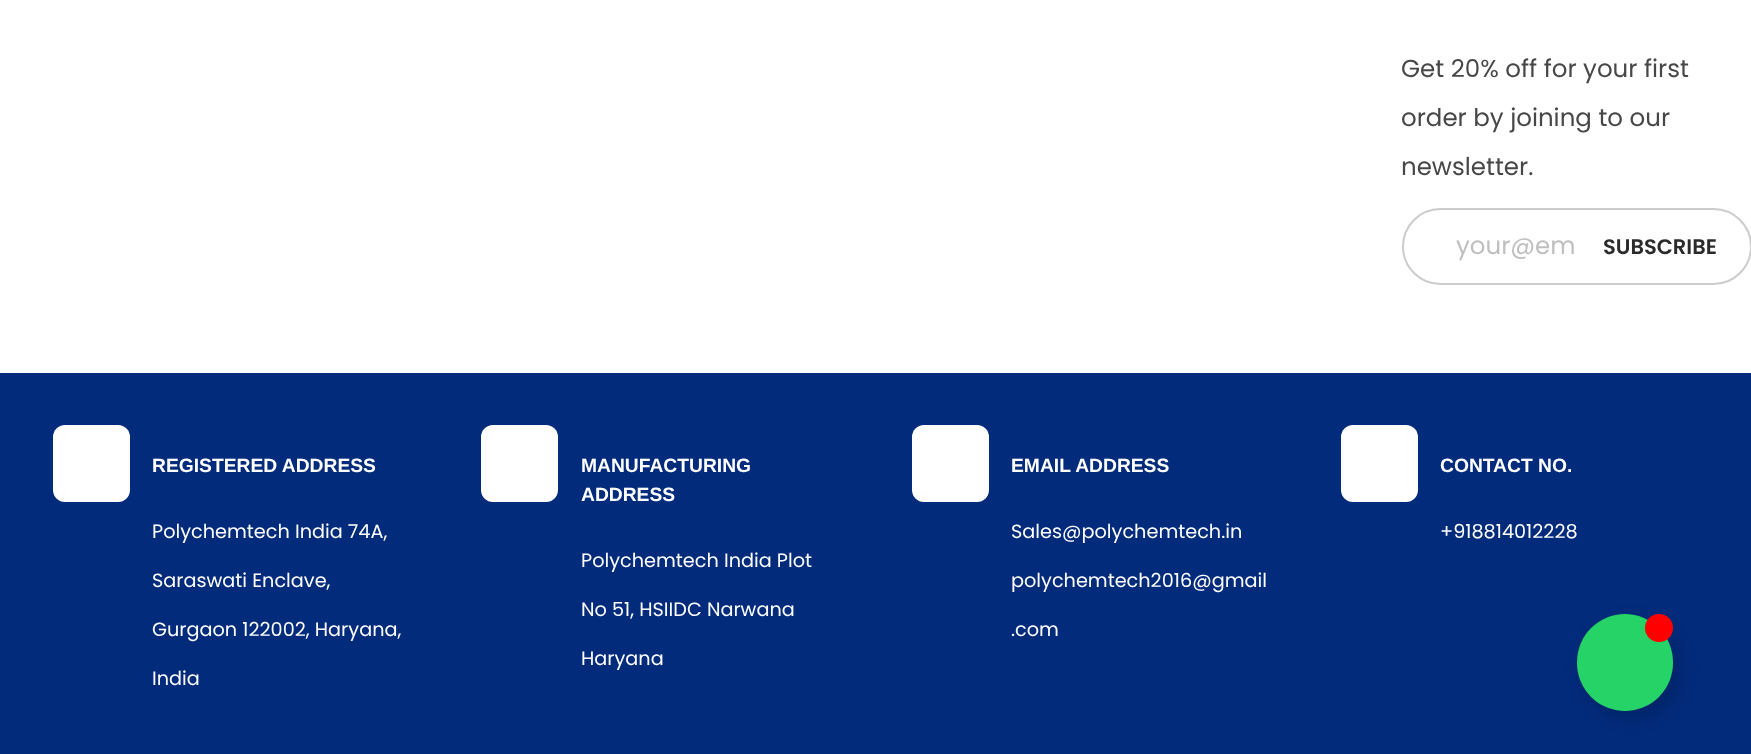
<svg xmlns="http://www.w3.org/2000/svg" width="1751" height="754">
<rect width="100%" height="100%" fill="#fff"/>
<text x="1401" y="77" style="font-family:Poppins;font-size:24.5px;fill:#474747">Get 20% off for your first</text>
<text x="1401" y="126" style="font-family:Poppins;font-size:24.5px;fill:#474747">order by joining to our</text>
<text x="1401" y="175" style="font-family:Poppins;font-size:24.5px;fill:#474747">newsletter.</text>
<rect x="1403" y="209" width="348" height="75" rx="37.5" fill="none" stroke="#ccc" stroke-width="2"/>
<text x="1456" y="254" style="font-family:Poppins;font-size:24.5px;fill:#bfbfbf">your@em</text>
<text x="1603" y="254" style="font-family:Poppins;font-size:21px;font-weight:600;fill:#2b2b2b">SUBSCRIBE</text>
<rect y="373" width="1751" height="381" fill="#032b7b"/>
<rect x="53" y="425" width="77" height="77" rx="12" fill="#fff"/>
<text x="152" y="472" style="font-family:Liberation Sans;font-size:19.25px;font-weight:bold;fill:#fff">REGISTERED ADDRESS</text>
<text x="152" y="538" style="font-family:Poppins;font-size:19.25px;fill:#fff">Polychemtech India 74A,</text>
<text x="152" y="587" style="font-family:Poppins;font-size:19.25px;fill:#fff">Saraswati Enclave,</text>
<text x="152" y="636" style="font-family:Poppins;font-size:19.25px;fill:#fff">Gurgaon 122002, Haryana,</text>
<text x="152" y="685" style="font-family:Poppins;font-size:19.25px;fill:#fff">India</text>
<rect x="481" y="425" width="77" height="77" rx="12" fill="#fff"/>
<text x="581" y="472" style="font-family:Liberation Sans;font-size:19.25px;font-weight:bold;fill:#fff">MANUFACTURING</text>
<text x="581" y="501" style="font-family:Liberation Sans;font-size:19.25px;font-weight:bold;fill:#fff">ADDRESS</text>
<text x="581" y="567" style="font-family:Poppins;font-size:19.25px;fill:#fff">Polychemtech India Plot</text>
<text x="581" y="616" style="font-family:Poppins;font-size:19.25px;fill:#fff">No 51, HSIIDC Narwana</text>
<text x="581" y="665" style="font-family:Poppins;font-size:19.25px;fill:#fff">Haryana</text>
<rect x="912" y="425" width="77" height="77" rx="12" fill="#fff"/>
<text x="1011" y="472" style="font-family:Liberation Sans;font-size:19.25px;font-weight:bold;fill:#fff">EMAIL ADDRESS</text>
<text x="1011" y="538" style="font-family:Poppins;font-size:19.25px;fill:#fff">Sales@polychemtech.in</text>
<text x="1011" y="587" style="font-family:Poppins;font-size:19.25px;fill:#fff">polychemtech2016@gmail</text>
<text x="1011" y="636" style="font-family:Poppins;font-size:19.25px;fill:#fff">.com</text>
<rect x="1341" y="425" width="77" height="77" rx="12" fill="#fff"/>
<text x="1440" y="472" style="font-family:Liberation Sans;font-size:19.25px;font-weight:bold;fill:#fff">CONTACT NO.</text>
<text x="1440" y="538" style="font-family:Poppins;font-size:19.25px;fill:#fff">+918814012228</text>
<rect x="1584" y="621" width="96" height="97" rx="48" fill="#00000026" filter="blur(9px)"/>
<rect x="1577" y="614" width="96" height="97" rx="48" fill="#25d366"/>
<circle cx="1659" cy="628" r="14" fill="#f00"/>
</svg>
